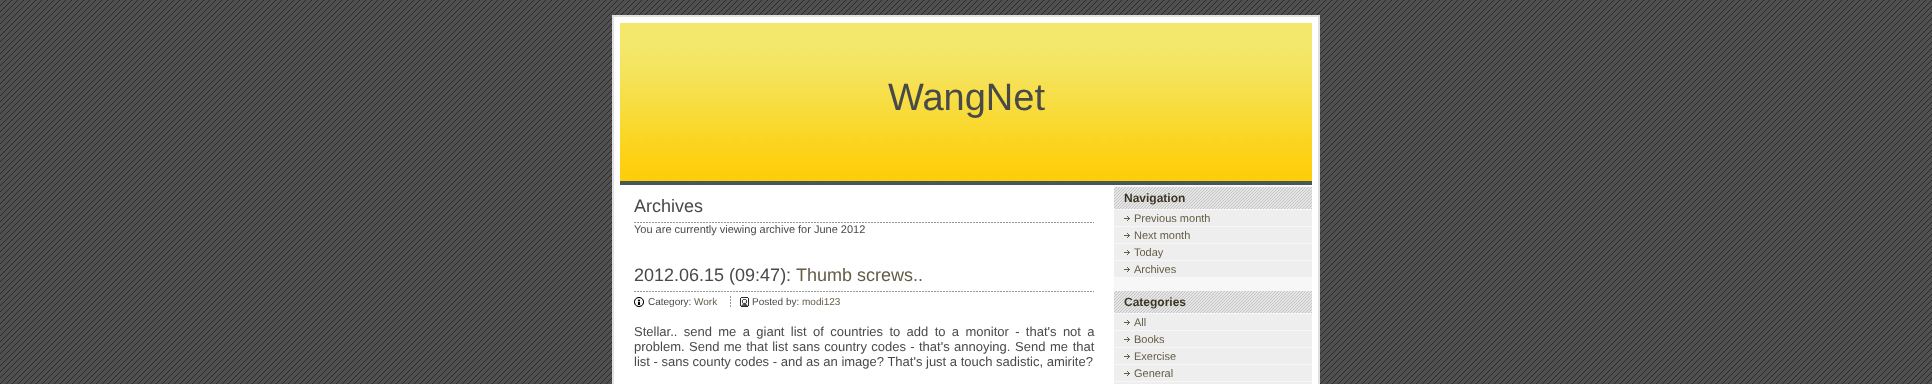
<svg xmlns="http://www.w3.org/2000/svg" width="1932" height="384">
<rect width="100%" height="100%" fill="#fff"/>
<image x="0" y="0" width="1932" height="384" href="media/1.png"/>
<rect x="612" y="15" width="708" height="2" fill="#e0e0e0"/>
<rect x="1318" y="15" width="2" height="170" fill="#e0e0e0"/>
<rect x="612" y="15" width="2" height="170" fill="#e0e0e0"/>
<rect x="614" y="17" width="704" height="367" fill="#fff"/>
<image x="620" y="23" width="692" height="162" href="media/2.png"/>
<text x="888" y="110" style="font-family:Liberation Sans;font-size:38px;fill:#494949">WangNet</text>
<rect x="1318" y="185" width="2" height="199" fill="#e0e0e0"/>
<rect x="612" y="185" width="2" height="199" fill="#e0e0e0"/>
<rect x="1114" y="185" width="198" height="197" fill="#f7f7f7"/>
<image x="634" y="222" width="460" height="1" href="media/3.png"/>
<text x="634" y="212" style="font-family:Liberation Sans;font-size:18px;fill:#494949">Archives</text>
<text x="634" y="233" style="font-family:Liberation Sans;font-size:11px;fill:#494949">You are currently viewing archive for June 2012</text>
<image x="634" y="291" width="460" height="1" href="media/3.png"/>
<text x="634" y="281" style="font-family:Liberation Sans;font-size:18px;fill:#494949">2012.06.15 (09:47):</text>
<text x="796" y="281" style="font-family:Liberation Sans;font-size:18px;fill:#635d45">Thumb screws..</text>
<image x="634" y="297" width="10" height="10" href="media/4.png"/>
<text x="648" y="305" style="font-family:Liberation Sans;font-size:10px;fill:#494949">Category:</text>
<text x="694" y="305" style="font-family:Liberation Sans;font-size:10px;fill:#635d45">Work</text>
<image x="730" y="296" width="1" height="11" href="media/5.png"/>
<image x="740" y="297" width="9" height="10" href="media/6.png"/>
<text x="752" y="305" style="font-family:Liberation Sans;font-size:10px;fill:#494949">Posted by:</text>
<text x="802" y="305" style="font-family:Liberation Sans;font-size:10px;fill:#635d45">modi123</text>
<text x="634" y="336" word-spacing="2.75" style="font-family:Liberation Sans;font-size:13px;fill:#494949">Stellar.. send me a giant list of countries to add to a monitor - that's not a</text>
<text x="634" y="351" style="font-family:Liberation Sans;font-size:13px;fill:#494949">problem.</text>
<text x="689" y="351" word-spacing="0.75" style="font-family:Liberation Sans;font-size:13px;fill:#494949">Send me that list sans country codes - that's annoying.</text>
<text x="1015" y="351" word-spacing="1" style="font-family:Liberation Sans;font-size:13px;fill:#494949">Send me that</text>
<text x="634" y="366" style="font-family:Liberation Sans;font-size:13px;fill:#494949">list - sans county codes - and as an image? That's just a touch sadistic, amirite?</text>
<rect x="1114" y="187" width="198" height="22" fill="#e5e5e5"/>
<image x="1114" y="187" width="198" height="22" href="media/7.png"/>
<text x="1124" y="202" style="font-family:Liberation Sans;font-size:12px;font-weight:bold;fill:#3a3523">Navigation</text>
<rect x="1114" y="210" width="198" height="16" fill="#eee"/>
<image x="1124" y="216" width="6" height="5" href="media/8.png"/>
<text x="1134" y="222" style="font-family:Liberation Sans;font-size:11px;fill:#635d45">Previous month</text>
<rect x="1114" y="227" width="198" height="16" fill="#eee"/>
<image x="1124" y="233" width="6" height="5" href="media/8.png"/>
<text x="1134" y="239" style="font-family:Liberation Sans;font-size:11px;fill:#635d45">Next month</text>
<rect x="1114" y="244" width="198" height="16" fill="#eee"/>
<image x="1124" y="250" width="6" height="5" href="media/8.png"/>
<text x="1134" y="256" style="font-family:Liberation Sans;font-size:11px;fill:#635d45">Today</text>
<rect x="1114" y="261" width="198" height="16" fill="#eee"/>
<image x="1124" y="267" width="6" height="5" href="media/8.png"/>
<text x="1134" y="273" style="font-family:Liberation Sans;font-size:11px;fill:#635d45">Archives</text>
<rect x="1114" y="291" width="198" height="22" fill="#e5e5e5"/>
<image x="1114" y="291" width="198" height="22" href="media/7.png"/>
<text x="1124" y="306" style="font-family:Liberation Sans;font-size:12px;font-weight:bold;fill:#3a3523">Categories</text>
<rect x="1114" y="314" width="198" height="16" fill="#eee"/>
<image x="1124" y="320" width="6" height="5" href="media/8.png"/>
<text x="1134" y="326" style="font-family:Liberation Sans;font-size:11px;fill:#635d45">All</text>
<rect x="1114" y="331" width="198" height="16" fill="#eee"/>
<image x="1124" y="337" width="6" height="5" href="media/8.png"/>
<text x="1134" y="343" style="font-family:Liberation Sans;font-size:11px;fill:#635d45">Books</text>
<rect x="1114" y="348" width="198" height="16" fill="#eee"/>
<image x="1124" y="354" width="6" height="5" href="media/8.png"/>
<text x="1134" y="360" style="font-family:Liberation Sans;font-size:11px;fill:#635d45">Exercise</text>
<rect x="1114" y="365" width="198" height="16" fill="#eee"/>
<image x="1124" y="371" width="6" height="5" href="media/8.png"/>
<text x="1134" y="377" style="font-family:Liberation Sans;font-size:11px;fill:#635d45">General</text>
<rect x="1114" y="382" width="198" height="2" fill="#eee"/>
</svg>
